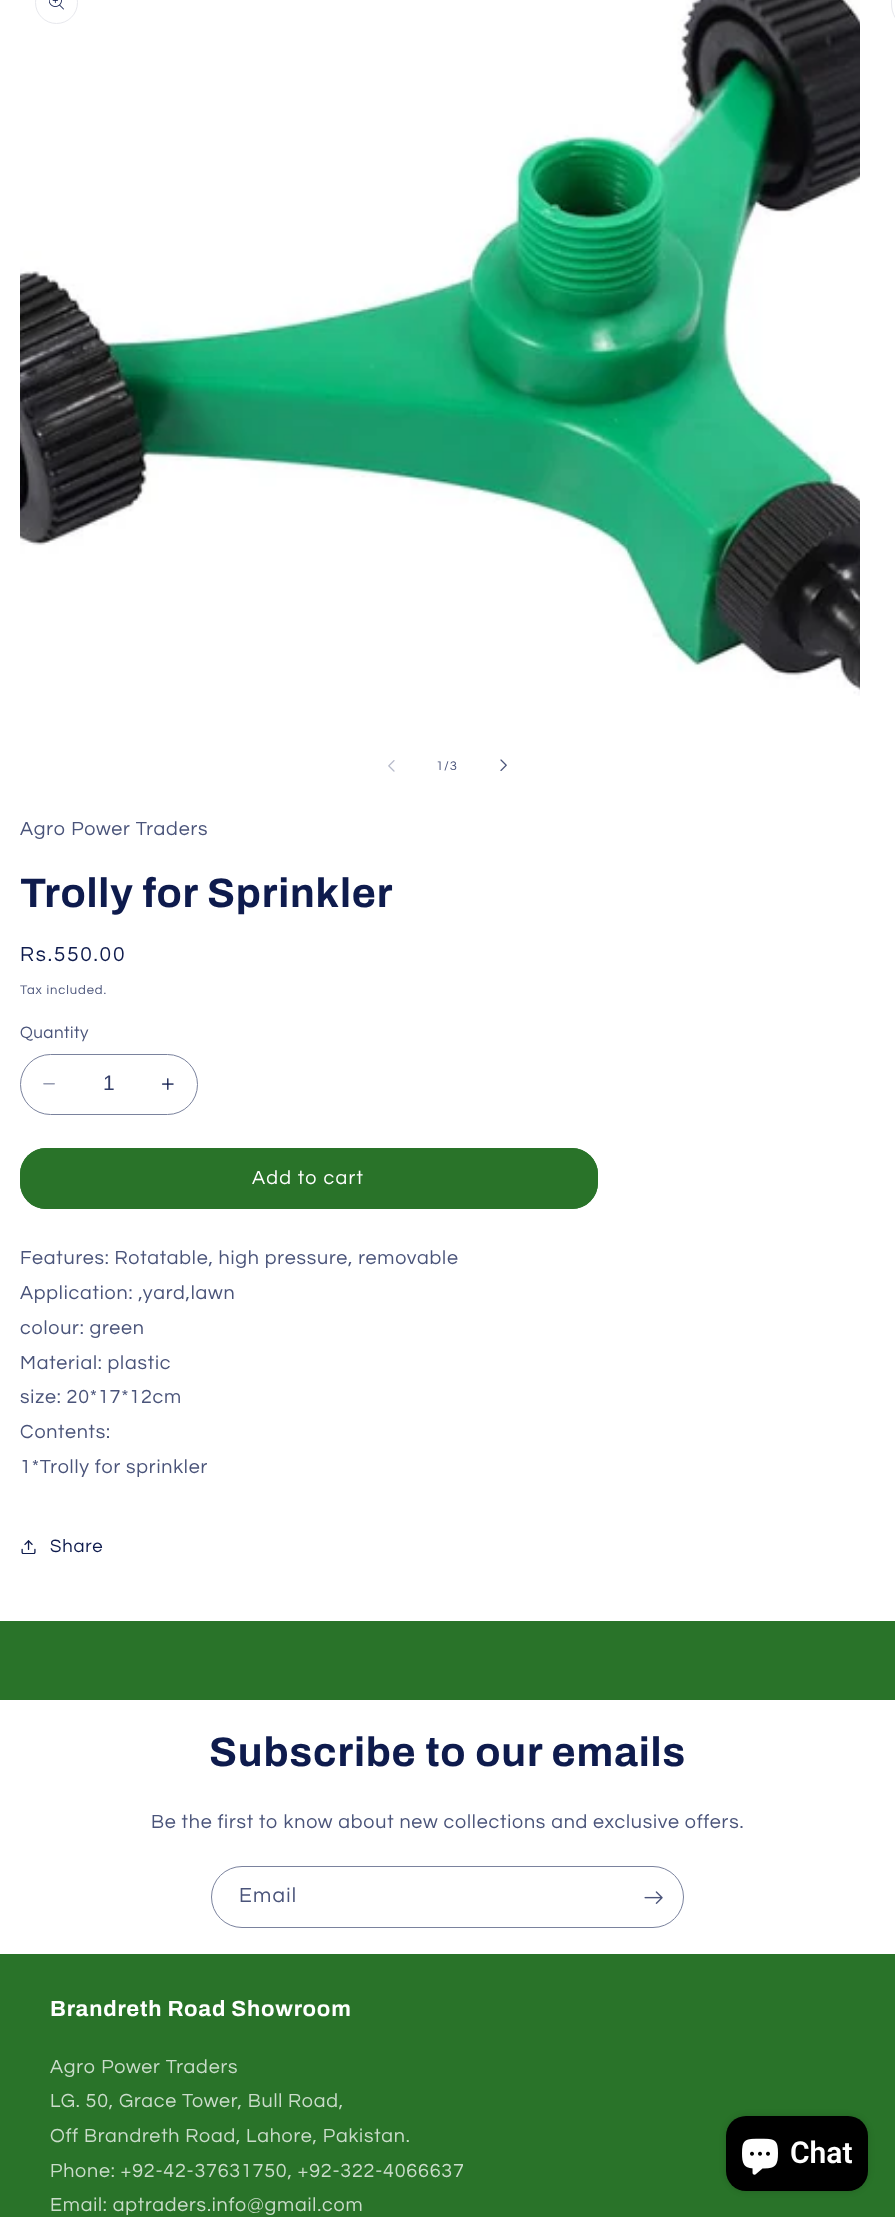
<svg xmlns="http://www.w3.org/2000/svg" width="895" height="2217">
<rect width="100%" height="100%" fill="#fff"/>
<image x="20" y="0" width="840" height="696" href="media/2.png"/>
<circle cx="56.5" cy="2.5" r="21" fill="none" stroke="#e7e8ed"/>
<image x="49" y="0" width="15" height="10" href="media/1.png"/>
<rect x="891.5" y="-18.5" width="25" height="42" rx="20.5" fill="none" stroke="#e7e8ed"/>
<image x="388" y="760" width="7" height="12" href="media/3.png"/>
<text x="436" y="770" style="font-family:Questrial;font-size:13px;letter-spacing:0.9px;fill:#4a547a">1/3</text>
<image x="500" y="759" width="7" height="12" href="media/4.png"/>
<text x="20" y="835" style="font-family:Questrial;font-size:19.7px;letter-spacing:0.8px;fill:#4a547a">Agro Power Traders</text>
<text x="20" y="907" style="font-family:Archivo;font-size:41.25px;font-weight:bold;letter-spacing:0.8px;fill:#0e1b4d">Trolly for Sprinkler</text>
<text x="20" y="961" style="font-family:Questrial;font-size:21px;letter-spacing:1.75px;fill:#0e1b4d">Rs.550.00</text>
<text x="20" y="994" style="font-family:Questrial;font-size:13px;letter-spacing:0.9px;fill:#4a547a">Tax included.</text>
<text x="20" y="1038" style="font-family:Questrial;font-size:17px;letter-spacing:0.5px;fill:#4a547a">Quantity</text>
<image x="43" y="1083" width="12" height="2" href="media/5.png"/>
<image x="162" y="1078" width="12" height="12" href="media/6.png"/>
<rect x="20.5" y="1054.5" width="177" height="60" rx="30" fill="none" stroke="#7a829d"/>
<text x="103" y="1090" style="font-family:Liberation Sans;font-size:21px;fill:#323d68">1</text>
<rect x="20" y="1148" width="578" height="61" rx="26" fill="#297329"/>
<rect x="20.5" y="1148.5" width="577" height="60" rx="25.5" fill="none" stroke="#297329"/>
<text x="252" y="1184" style="font-family:Questrial;font-size:19.7px;letter-spacing:1.25px;fill:#fff">Add to cart</text>
<text x="20" y="1264" style="font-family:Questrial;font-size:19.7px;letter-spacing:0.8px;fill:#4a547a">Features: Rotatable, high pressure, removable</text>
<text x="20" y="1299" style="font-family:Questrial;font-size:19.7px;letter-spacing:0.8px;fill:#4a547a">Application: ,yard,lawn</text>
<text x="20" y="1334" style="font-family:Questrial;font-size:19.7px;letter-spacing:0.8px;fill:#4a547a">colour: green</text>
<text x="20" y="1369" style="font-family:Questrial;font-size:19.7px;letter-spacing:0.8px;fill:#4a547a">Material: plastic</text>
<text x="20" y="1403" style="font-family:Questrial;font-size:19.7px;letter-spacing:0.8px;fill:#4a547a">size: 20*17*12cm</text>
<text x="20" y="1438" style="font-family:Questrial;font-size:19.7px;letter-spacing:0.8px;fill:#4a547a">Contents:</text>
<text x="20" y="1473" style="font-family:Questrial;font-size:19.7px;letter-spacing:0.8px;fill:#4a547a">1*Trolly for sprinkler</text>
<image x="21" y="1540" width="15" height="14" href="media/7.png"/>
<text x="50" y="1552" style="font-family:Questrial;font-size:18.5px;letter-spacing:0.8px;fill:#0e1b4d">Share</text>
<rect y="1621" width="895" height="79" fill="#297329"/>
<text x="209" y="1766" style="font-family:Archivo;font-size:41.25px;font-weight:bold;letter-spacing:0.8px;fill:#0e1b4d">Subscribe to our emails</text>
<text x="151" y="1828" style="font-family:Questrial;font-size:19.7px;letter-spacing:0.8px;fill:#4a547a">Be the first to know about new collections and exclusive offers.</text>
<rect x="211.5" y="1866.5" width="472" height="61" rx="30.5" fill="none" stroke="#7a829d"/>
<text x="239" y="1902" style="font-family:Questrial;font-size:21px;letter-spacing:1.25px;fill:#4a547a">Email</text>
<image x="644" y="1891" width="19" height="13" href="media/8.png"/>
<rect y="1954" width="895" height="263" fill="#297329"/>
<text x="50" y="2016" style="font-family:Archivo;font-size:22px;font-weight:bold;letter-spacing:0.8px;fill:#fff">Brandreth Road Showroom</text>
<text x="50" y="2073" style="font-family:Questrial;font-size:19.7px;letter-spacing:0.8px;fill:#cadcca">Agro Power Traders</text>
<text x="50" y="2107" style="font-family:Questrial;font-size:19.7px;letter-spacing:0.8px;fill:#cadcca">LG. 50, Grace Tower, Bull Road,</text>
<text x="50" y="2142" style="font-family:Questrial;font-size:19.7px;letter-spacing:0.8px;fill:#cadcca">Off Brandreth Road, Lahore, Pakistan.</text>
<text x="50" y="2177" style="font-family:Questrial;font-size:19.7px;letter-spacing:0.8px;fill:#cadcca">Phone: +92-42-37631750, +92-322-4066637</text>
<text x="50" y="2211" style="font-family:Questrial;font-size:19.7px;letter-spacing:0.8px;fill:#cadcca">Email: aptraders.info@gmail.com</text>
<rect x="726" y="2116" width="142" height="75" rx="20" fill="#00000026" filter="blur(3px)"/>
<rect x="726" y="2116" width="142" height="75" rx="20" fill="#000"/>
<image x="742" y="2138" width="36" height="37" href="media/9.png"/>
<text x="790" y="2163" style="font-family:Roboto;font-size:30px;font-weight:600;fill:#fff">Chat</text>
</svg>
